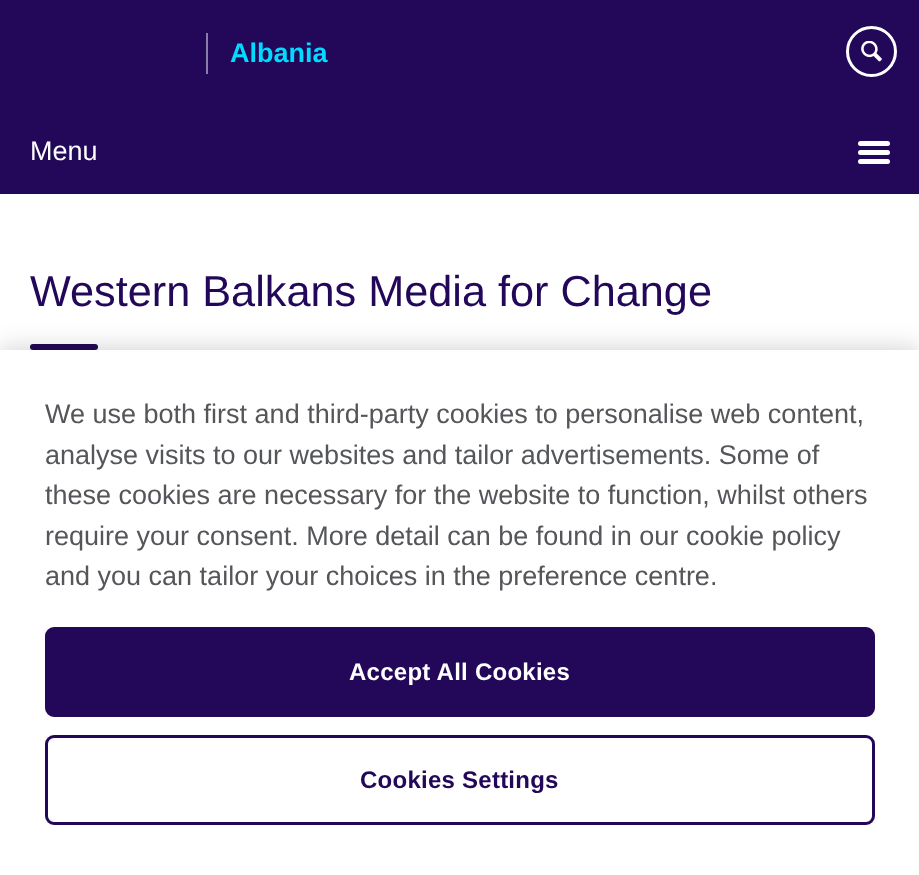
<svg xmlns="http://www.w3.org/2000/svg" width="919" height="875">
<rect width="100%" height="100%" fill="#fff"/>
<rect width="919" height="194" fill="#23085a"/>
<rect x="206" y="33" width="2" height="41" fill="#8a7da6"/>
<text x="230" y="62" style="font-family:Liberation Sans;font-size:27px;font-weight:bold;fill:#00dcff">Albania</text>
<circle cx="871.5" cy="51.5" r="24" fill="none" stroke="#fff" stroke-width="3"/>
<image x="861" y="41" width="21" height="21" href="media/1.png"/>
<text x="30" y="160" style="font-family:Liberation Sans;font-size:27px;fill:#fff">Menu</text>
<rect x="858" y="141" width="32" height="5" rx="2.5" fill="#fff"/>
<rect x="858" y="150" width="32" height="5" rx="2.5" fill="#fff"/>
<rect x="858" y="159" width="32" height="5" rx="2.5" fill="#fff"/>
<text x="30" y="306" style="font-family:Liberation Sans;font-size:43.25px;fill:#23085a">Western Balkans Media for Change</text>
<rect x="30" y="344" width="68" height="6" rx="3" fill="#23085a"/>
<rect y="350" width="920" height="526" fill="#00000033" filter="blur(13.5px)"/>
<rect y="350" width="919" height="525" fill="#fff"/>
<text x="45" y="423" style="font-family:Liberation Sans;font-size:27px;fill:#54565a">We use both first and third-party cookies to personalise web content,</text>
<text x="45" y="464" style="font-family:Liberation Sans;font-size:27px;fill:#54565a">analyse visits to our websites and tailor advertisements. Some of</text>
<text x="45" y="504" style="font-family:Liberation Sans;font-size:27px;fill:#54565a">these cookies are necessary for the website to function, whilst others</text>
<text x="45" y="545" style="font-family:Liberation Sans;font-size:27px;fill:#54565a">require your consent. More detail can be found in our cookie policy</text>
<text x="45" y="585" style="font-family:Liberation Sans;font-size:27px;fill:#54565a">and you can tailor your choices in the preference centre.</text>
<rect x="46.5" y="628.5" width="827" height="87" rx="7.5" fill="#23085a" stroke="#23085a" stroke-width="3"/>
<text x="349" y="680" style="font-family:Liberation Sans;font-size:24px;font-weight:bold;letter-spacing:0.25px;fill:#fff">Accept All Cookies</text>
<rect x="46.5" y="736.5" width="827" height="87" rx="7.5" fill="none" stroke="#23085a" stroke-width="3"/>
<text x="360" y="788" style="font-family:Liberation Sans;font-size:24px;font-weight:bold;letter-spacing:0.25px;fill:#23085a">Cookies Settings</text>
</svg>
